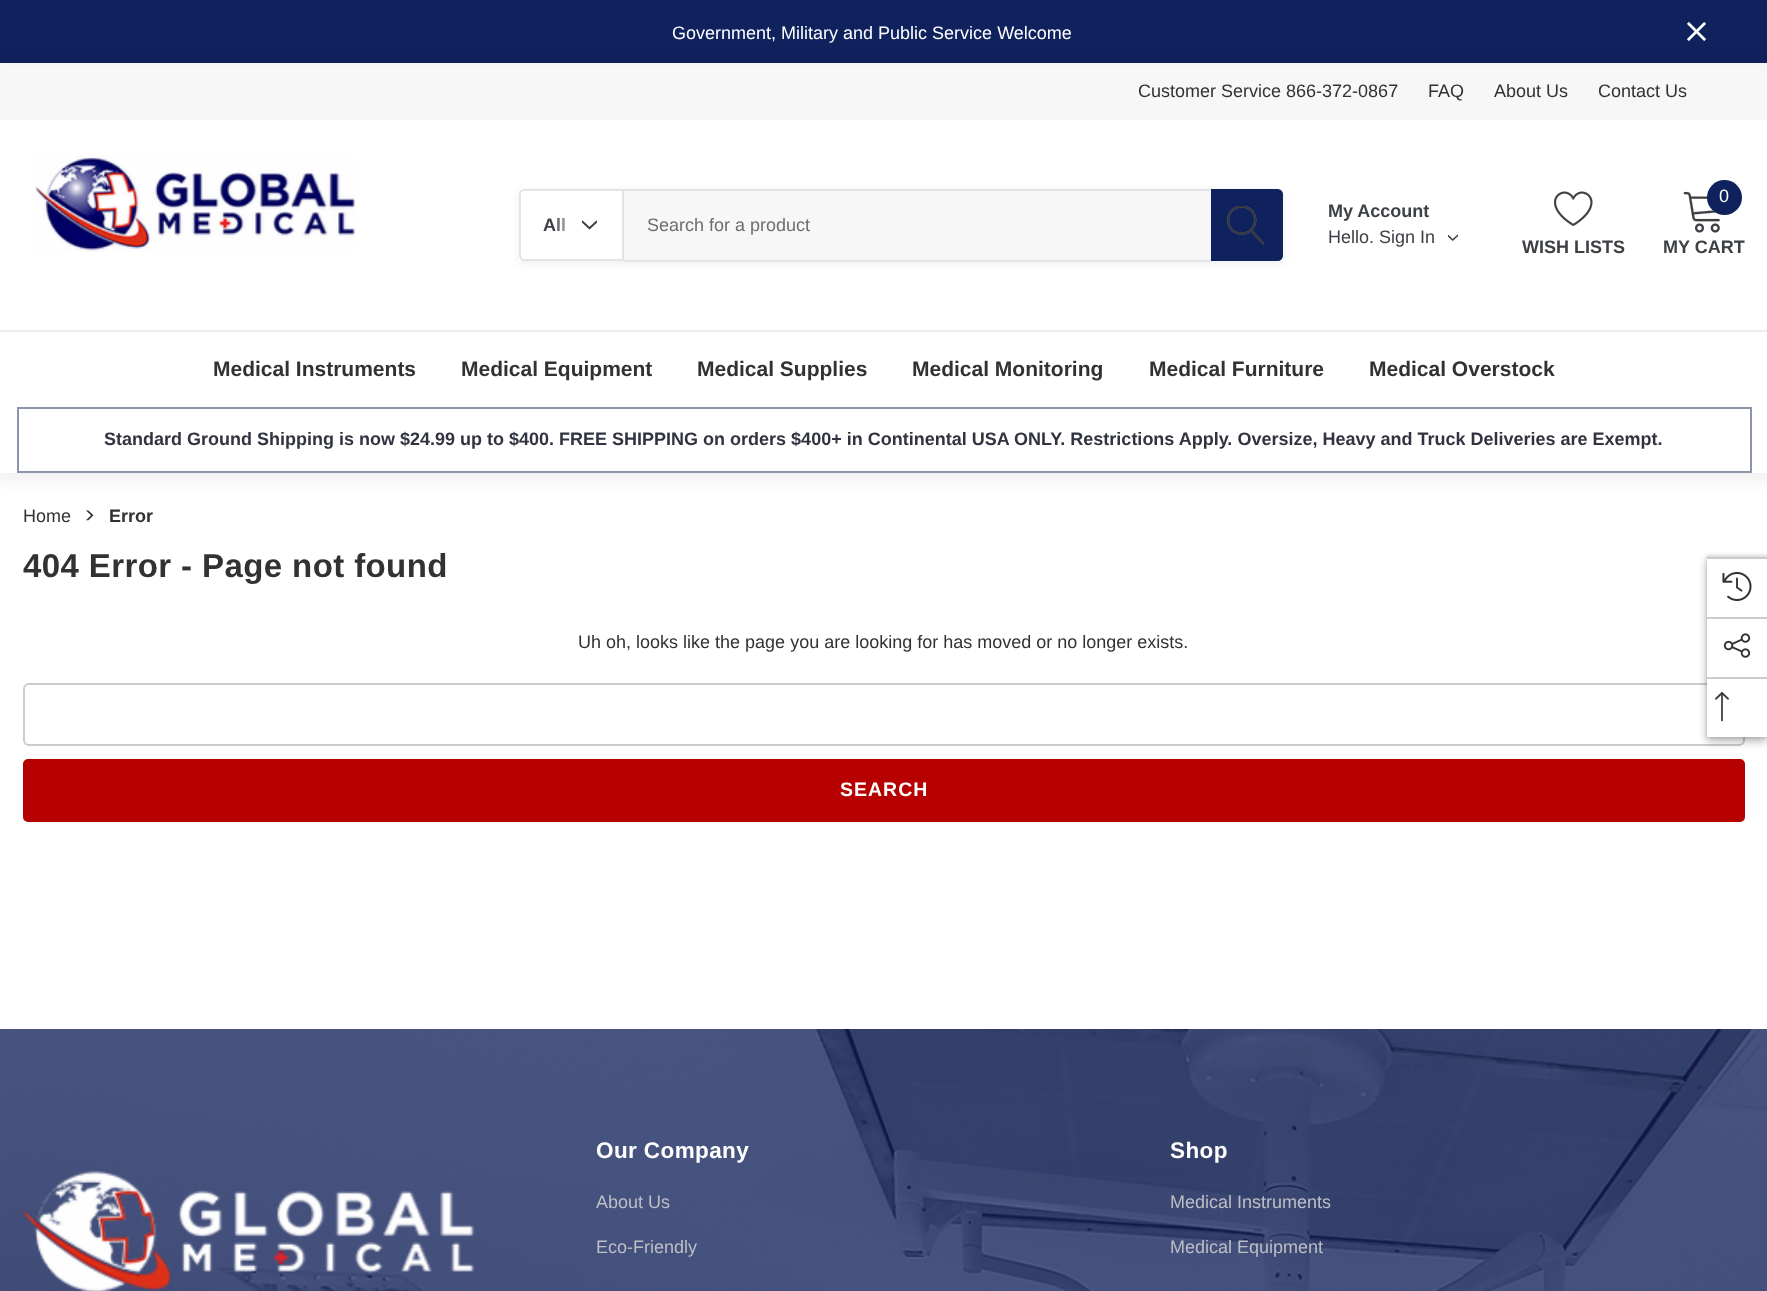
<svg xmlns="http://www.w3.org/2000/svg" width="1767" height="1291">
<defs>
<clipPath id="clip1"><path d="M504 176h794v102h-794zm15 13h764v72h-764z" clip-rule="evenodd"/></clipPath>
<linearGradient id="g1" gradientUnits="userSpaceOnUse" x1="578" y1="227" x2="555" y2="227"><stop offset="0" stop-color="#fff"/><stop offset="1" stop-color="#fff" stop-opacity="0.1"/></linearGradient>
</defs>
<rect width="100%" height="100%" fill="#fff"/>
<rect width="1767" height="63" fill="#10225d"/>
<text x="672" y="39" style="font-family:Arimo;font-size:18px;fill:#fff">Government, Military and Public Service Welcome</text>
<image x="1687" y="22" width="19" height="19" href="media/1.png"/>
<rect x="-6" y="60" width="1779" height="422" fill="#0000000d" filter="blur(6px)"/>
<rect y="120" width="1767" height="353" fill="#fff"/>
<rect y="66" width="1767" height="54" fill="#f7f7f7"/>
<text x="1138" y="97" style="font-family:Arimo;font-size:18px;fill:#323232">Customer Service 866-372-0867</text>
<text x="1428" y="97" style="font-family:Arimo;font-size:18px;fill:#323232">FAQ</text>
<text x="1494" y="97" style="font-family:Arimo;font-size:18px;fill:#323232">About Us</text>
<text x="1598" y="97" style="font-family:Arimo;font-size:18px;fill:#323232">Contact Us</text>
<image x="34" y="156" width="322" height="96" href="media/2.png"/>
<g clip-path="url(#clip1)">
<rect x="519" y="191" width="764" height="72" fill="#00000012" filter="blur(4.5px)"/>
</g>
<path d="M524 190h99v70h-99c-2 0-4-2-4-4v-62c0-2 2-4 4-4z" fill="none" stroke="#e2e4e8" stroke-width="2"/>
<text x="543" y="231" style="font-family:Arimo;font-size:18px;font-weight:bold;fill:#3d4044">All</text>
<rect x="555" y="217" width="10" height="14" fill="url(#g1)"/>
<image x="582" y="220" width="15" height="10" href="media/3.png"/>
<rect x="624" y="191" width="587" height="69" fill="#f7f7f7"/>
<rect x="624" y="189" width="587" height="2" fill="#e2e4e8"/>
<rect x="624" y="260" width="587" height="2" fill="#e2e4e8"/>
<text x="647" y="231" style="font-family:Arimo;font-size:18px;fill:#6e6e6e">Search for a product</text>
<path d="M1212 190h66c2 0 4 2 4 4v62c0 2-2 4-4 4h-66z" fill="#10225d" stroke="#10225d" stroke-width="2"/>
<image x="1227" y="206" width="38" height="39" href="media/4.png"/>
<text x="1328" y="217" style="font-family:Arimo;font-size:18px;font-weight:bold;fill:#3d4044">My Account</text>
<text x="1328" y="243" style="font-family:Arimo;font-size:18px;fill:#3d4044">Hello. Sign In</text>
<image x="1448" y="234" width="10" height="7" href="media/5.png"/>
<image x="1683" y="191" width="37" height="42" href="media/6.png"/>
<circle cx="1724.5" cy="197.5" r="17.5" fill="#10225d"/>
<text x="1719" y="202" style="font-family:Arimo;font-size:18px;fill:#fff">0</text>
<text x="1663" y="253" style="font-family:Arimo;font-size:18px;font-weight:bold;fill:#3d4044">MY CART</text>
<image x="1554" y="191" width="39" height="35" href="media/7.png"/>
<text x="1522" y="253" style="font-family:Arimo;font-size:18px;font-weight:bold;fill:#3d4044">WISH LISTS</text>
<rect y="330" width="1767" height="2" fill="#eee"/>
<text x="213" y="376" style="font-family:Arimo;font-size:21px;font-weight:bold;fill:#323232">Medical Instruments</text>
<text x="461" y="376" style="font-family:Arimo;font-size:21px;font-weight:bold;fill:#323232">Medical Equipment</text>
<text x="697" y="376" style="font-family:Arimo;font-size:21px;font-weight:bold;fill:#323232">Medical Supplies</text>
<text x="912" y="376" style="font-family:Arimo;font-size:21px;font-weight:bold;fill:#323232">Medical Monitoring</text>
<text x="1149" y="376" style="font-family:Arimo;font-size:21px;font-weight:bold;fill:#323232">Medical Furniture</text>
<text x="1369" y="376" style="font-family:Arimo;font-size:21px;font-weight:bold;fill:#323232">Medical Overstock</text>
<rect x="18" y="408" width="1733" height="64" fill="none" stroke="#8c93ad" stroke-width="2"/>
<text x="104" y="445" style="font-family:Liberation Sans;font-size:18px;font-weight:bold;fill:#313440">Standard Ground Shipping is now $24.99 up to $400. FREE SHIPPING on orders $400+ in Continental USA ONLY. Restrictions Apply. Oversize, Heavy and Truck Deliveries are Exempt.</text>
<text x="23" y="522" style="font-family:Arimo;font-size:18px;fill:#323232">Home</text>
<text x="84" y="523" style="font-family:Poppins;font-size:21px;fill:#323232">&gt;</text>
<text x="109" y="522" style="font-family:Arimo;font-size:18px;font-weight:bold;fill:#323232">Error</text>
<text x="23" y="577" style="font-family:Arimo;font-size:33px;font-weight:bold;letter-spacing:0.4px;fill:#323232">404 Error - Page not found</text>
<text x="578" y="648" style="font-family:Arimo;font-size:18px;fill:#323232">Uh oh, looks like the page you are looking for has moved or no longer exists.</text>
<rect x="24" y="684" width="1720" height="61" rx="5" fill="none" stroke="#ccc" stroke-width="2"/>
<rect x="24" y="760" width="1720" height="61" rx="4" fill="#b70000" stroke="#b70000" stroke-width="2"/>
<text x="840" y="796" style="font-family:Arimo;font-size:19.5px;font-weight:bold;letter-spacing:1px;fill:#fff">SEARCH</text>
<rect x="1707" y="561" width="60" height="180" fill="#0000004d" filter="blur(5px)"/>
<rect x="1706" y="555" width="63" height="183" fill="#0000001a" filter="blur(1.5px)"/>
<rect x="1707" y="559" width="60" height="178" fill="#fff"/>
<rect x="1707" y="557" width="60" height="2" fill="#ccc"/>
<image x="1722" y="572" width="30" height="29" href="media/8.png"/>
<rect x="1707" y="617" width="60" height="2" fill="#ccc"/>
<image x="1723" y="633" width="28" height="25" href="media/9.png"/>
<rect x="1707" y="677" width="60" height="2" fill="#ccc"/>
<image x="1715" y="692" width="14" height="30" href="media/10.png"/>
<rect y="1029" width="1767" height="262" fill="#10225d"/>
<image x="0" y="1029" width="1767" height="262" href="media/11.png"/>
<image x="23" y="1170" width="452" height="121" href="media/12.png"/>
<text x="596" y="1158" style="font-family:Arimo;font-size:22.5px;font-weight:bold;letter-spacing:0.4px;fill:#fff">Our Company</text>
<text x="596" y="1208" style="font-family:Arimo;font-size:18px;fill:#bcbfc5">About Us</text>
<text x="596" y="1253" style="font-family:Arimo;font-size:18px;fill:#bcbfc5">Eco-Friendly</text>
<text x="1170" y="1158" style="font-family:Arimo;font-size:22.5px;font-weight:bold;letter-spacing:0.4px;fill:#fff">Shop</text>
<text x="1170" y="1208" style="font-family:Arimo;font-size:18px;fill:#bcbfc5">Medical Instruments</text>
<text x="1170" y="1253" style="font-family:Arimo;font-size:18px;fill:#bcbfc5">Medical Equipment</text>
</svg>
